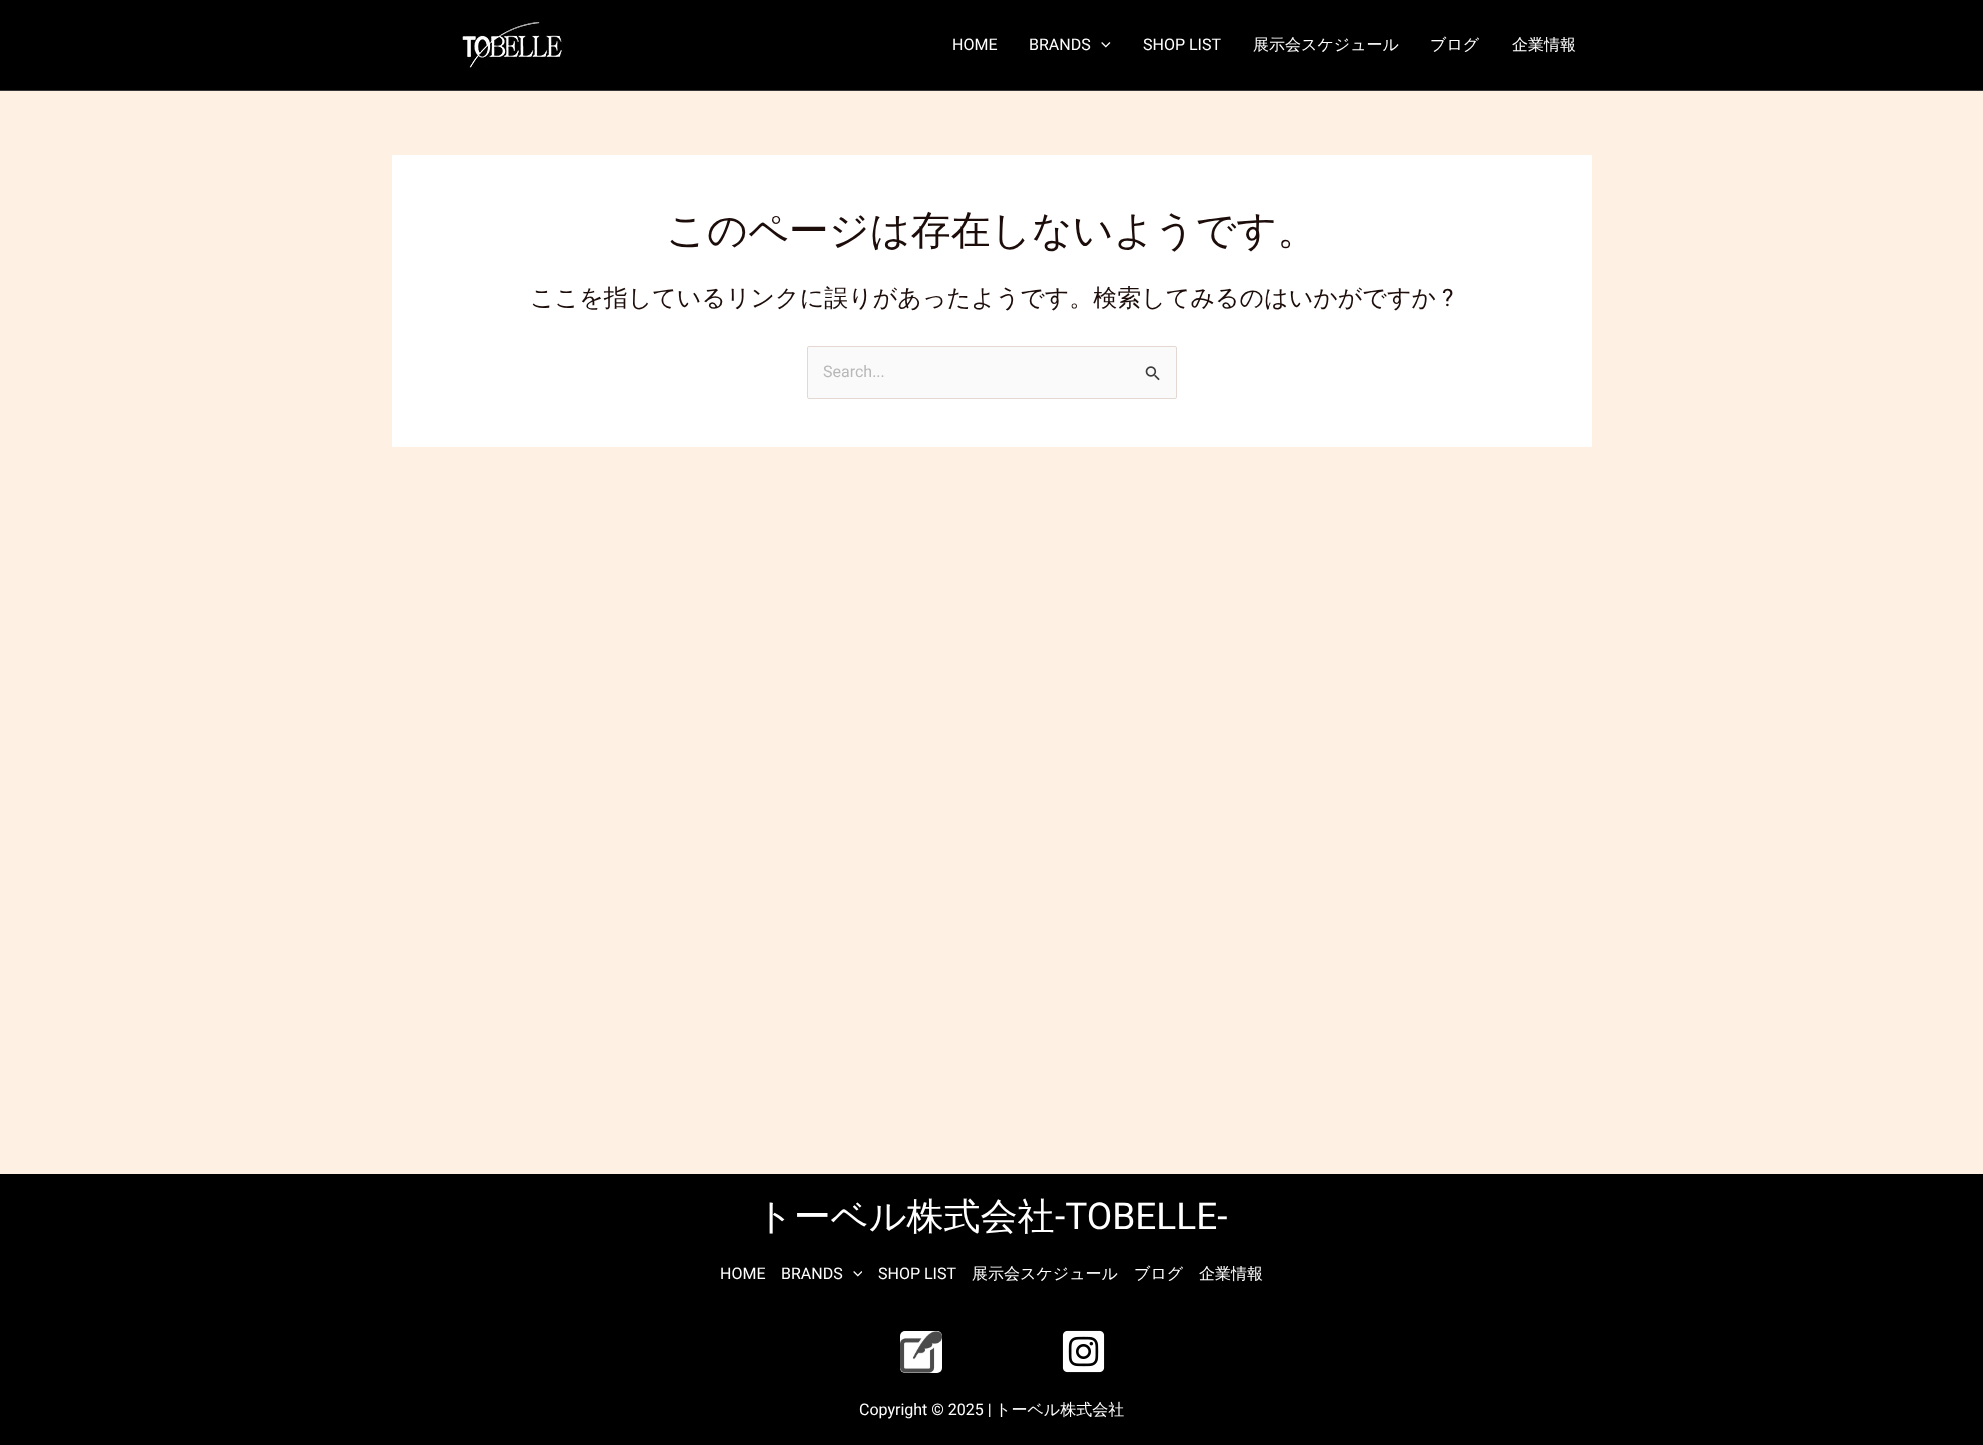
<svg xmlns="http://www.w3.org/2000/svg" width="1983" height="1445">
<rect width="100%" height="100%" fill="#fef1e4"/>
<rect width="1983" height="90" fill="#000"/>
<rect y="90" width="1983" height="1" fill="#353535"/>
<image x="462" y="20" width="102" height="48" href="media/1.png"/>
<text x="952" y="50" style="font-family:Roboto;font-size:16px;fill:#fff">HOME</text>
<text x="1029" y="50" style="font-family:Roboto;font-size:16px;fill:#fff">BRANDS</text>
<image x="1101" y="42" width="10" height="6" href="media/2.png"/>
<text x="1143" y="50" style="font-family:Roboto;font-size:16px;fill:#fff">SHOP LIST</text>
<text x="1253" y="50" style="font-family:WenQuanYi Zen Hei;font-size:16px;font-weight:500;fill:#fff">展示会スケジュール</text>
<text x="1430" y="50" style="font-family:WenQuanYi Zen Hei;font-size:16px;font-weight:500;fill:#fff">ブログ</text>
<text x="1512" y="50" style="font-family:WenQuanYi Zen Hei;font-size:16px;font-weight:500;fill:#fff">企業情報</text>
<rect x="392" y="155" width="1200" height="292" fill="#fff"/>
<text x="666" y="244" style="font-family:WenQuanYi Zen Hei;font-size:40px;font-weight:500;fill:#1c0d0a">このページは存在しないようです。</text>
<text x="530" y="306" style="font-family:WenQuanYi Zen Hei;font-size:24px;font-weight:500;fill:#1c0d0a">ここを指しているリンクに誤りがあったようです。検索してみるのはいかがですか</text>
<text x="1442" y="306" style="font-family:Roboto;font-size:24px;fill:#1c0d0a">?</text>
<rect x="807.5" y="346.5" width="369" height="52" rx="1.5" fill="#fafafa" stroke="#e5d7d1"/>
<text x="823" y="377" style="font-family:Roboto;font-size:16px;fill:#b8b8b8">Search...</text>
<image x="1145" y="366" width="15" height="15" href="media/3.png"/>
<rect y="1174" width="1983" height="143" fill="#000"/>
<text x="756" y="1229" style="font-family:WenQuanYi Zen Hei;font-size:37px;font-weight:500;fill:#fff">トーベル株式会社</text>
<text x="1055" y="1229" style="font-family:Roboto;font-size:37px;fill:#fff">-TOBELLE-</text>
<text x="720" y="1279" style="font-family:Roboto;font-size:16px;fill:#fff">HOME</text>
<text x="781" y="1279" style="font-family:Roboto;font-size:16px;fill:#fff">BRANDS</text>
<image x="853" y="1271" width="9" height="6" href="media/4.png"/>
<text x="878" y="1279" style="font-family:Roboto;font-size:16px;fill:#fff">SHOP LIST</text>
<text x="972" y="1279" style="font-family:WenQuanYi Zen Hei;font-size:16px;font-weight:500;fill:#fff">展示会スケジュール</text>
<text x="1134" y="1279" style="font-family:WenQuanYi Zen Hei;font-size:16px;font-weight:500;fill:#fff">ブログ</text>
<text x="1199" y="1279" style="font-family:WenQuanYi Zen Hei;font-size:16px;font-weight:500;fill:#fff">企業情報</text>
<rect y="1317" width="1983" height="128" fill="#000"/>
<image x="900" y="1331" width="42" height="42" href="media/5.png"/>
<image x="1062" y="1330" width="43" height="43" href="media/6.png"/>
<text x="859" y="1415" style="font-family:Roboto;font-size:16px;fill:#fff">Copyright © 2025 |</text>
<text x="995" y="1415" style="font-family:WenQuanYi Zen Hei;font-size:16px;font-weight:500;fill:#fff">トーベル株式会社</text>
</svg>
